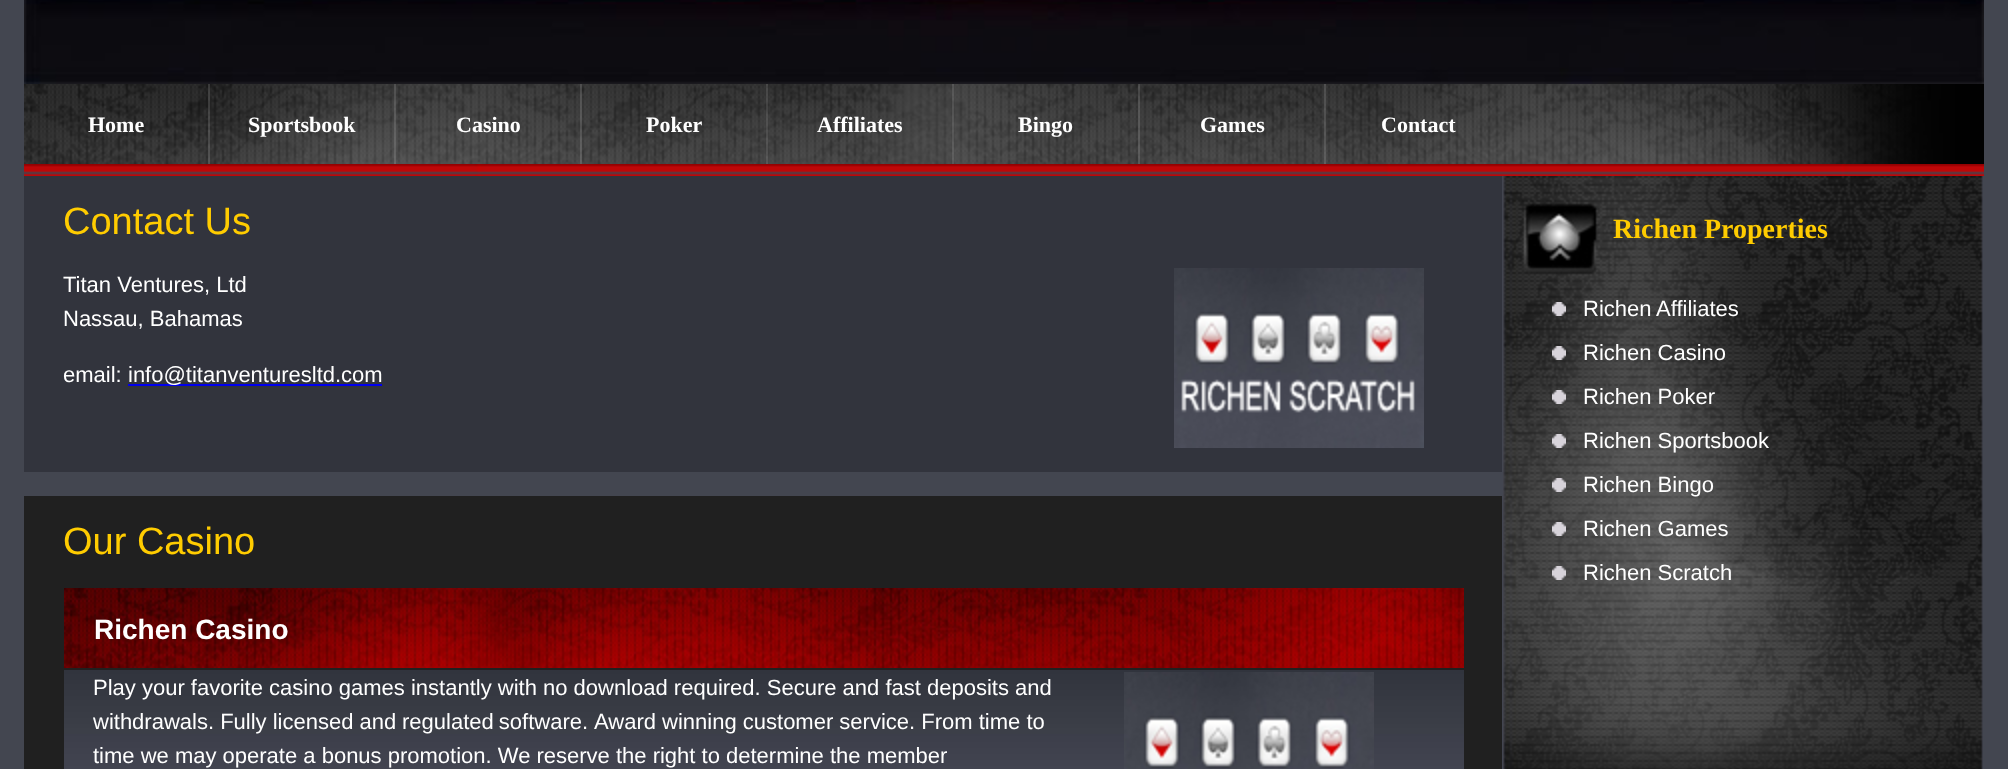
<svg xmlns="http://www.w3.org/2000/svg" width="2008" height="769">
<rect width="100%" height="100%" fill="#434650"/>
<image x="24" y="0" width="1960" height="84" href="media/1.png"/>
<image x="24" y="84" width="1960" height="80" href="media/2.png"/>
<text x="88" y="132" style="font-family:Liberation Serif;font-size:22px;font-weight:bold;fill:#fff">Home</text>
<rect x="208" y="84" width="2" height="80" fill="#ffffff21"/>
<text x="248" y="132" style="font-family:Liberation Serif;font-size:22px;font-weight:bold;fill:#fff">Sportsbook</text>
<rect x="394" y="84" width="2" height="80" fill="#ffffff21"/>
<text x="456" y="132" style="font-family:Liberation Serif;font-size:22px;font-weight:bold;fill:#fff">Casino</text>
<rect x="580" y="84" width="2" height="80" fill="#ffffff21"/>
<text x="646" y="132" style="font-family:Liberation Serif;font-size:22px;font-weight:bold;fill:#fff">Poker</text>
<rect x="766" y="84" width="2" height="80" fill="#ffffff21"/>
<text x="817" y="132" style="font-family:Liberation Serif;font-size:22px;font-weight:bold;fill:#fff">Affiliates</text>
<rect x="952" y="84" width="2" height="80" fill="#ffffff21"/>
<text x="1018" y="132" style="font-family:Liberation Serif;font-size:22px;font-weight:bold;fill:#fff">Bingo</text>
<rect x="1138" y="84" width="2" height="80" fill="#ffffff21"/>
<text x="1200" y="132" style="font-family:Liberation Serif;font-size:22px;font-weight:bold;fill:#fff">Games</text>
<rect x="1324" y="84" width="2" height="80" fill="#ffffff21"/>
<text x="1381" y="132" style="font-family:Liberation Serif;font-size:22px;font-weight:bold;fill:#fff">Contact</text>
<image x="24" y="164" width="1960" height="12" href="media/3.png"/>
<rect x="24" y="176" width="1478" height="296" fill="#32343d"/>
<text x="63" y="234" style="font-family:Liberation Sans;font-size:38px;fill:#fc0">Contact Us</text>
<text x="63" y="292" style="font-family:Liberation Sans;font-size:22px;fill:#fff">Titan Ventures, Ltd</text>
<text x="63" y="326" style="font-family:Liberation Sans;font-size:22px;fill:#fff">Nassau, Bahamas</text>
<text x="63" y="382" style="font-family:Liberation Sans;font-size:22px;fill:#fff">email:</text>
<rect x="128" y="384" width="254" height="2" fill="#00e"/>
<text x="128" y="382" style="font-family:Liberation Sans;font-size:22px;fill:#fff">info@titanventuresltd.com</text>
<image x="1174" y="268" width="250" height="180" href="media/4.png"/>
<rect x="24" y="496" width="1478" height="273" fill="#202020"/>
<text x="63" y="554" style="font-family:Liberation Sans;font-size:38px;fill:#fc0">Our Casino</text>
<image x="64" y="588" width="1400" height="80" href="media/5.png"/>
<text x="94" y="639" style="font-family:Liberation Sans;font-size:28px;font-weight:bold;fill:#fff">Richen Casino</text>
<image x="64" y="670" width="1400" height="99" href="media/6.png"/>
<text x="93" y="695" style="font-family:Liberation Sans;font-size:22px;fill:#fff">Play your favorite casino games instantly with no download required. Secure and fast deposits and</text>
<text x="93" y="729" style="font-family:Liberation Sans;font-size:22px;fill:#fff">withdrawals. Fully licensed and</text>
<text x="402" y="729" word-spacing="-1" style="font-family:Liberation Sans;font-size:22px;fill:#fff">regulated software.</text>
<text x="594" y="729" style="font-family:Liberation Sans;font-size:22px;fill:#fff">Award winning customer service. From time to</text>
<text x="93" y="763" style="font-family:Liberation Sans;font-size:22px;fill:#fff">time we may operate a bonus promotion. We reserve the right to determine the member</text>
<image x="1124" y="672" width="250" height="97" href="media/7.png"/>
<image x="1503" y="176" width="480" height="593" href="media/8.png"/>
<text x="1613" y="238" style="font-family:Liberation Serif;font-size:28px;font-weight:bold;fill:#fc0">Richen Properties</text>
<image x="1552" y="302" width="14" height="14" href="media/9.png"/>
<text x="1583" y="316" style="font-family:Liberation Sans;font-size:22px;fill:#fff">Richen</text>
<text x="1656" y="316" style="font-family:Liberation Sans;font-size:22px;fill:#fff">Affiliates</text>
<image x="1552" y="346" width="14" height="14" href="media/10.png"/>
<text x="1583" y="360" style="font-family:Liberation Sans;font-size:22px;fill:#fff">Richen Casino</text>
<image x="1552" y="390" width="14" height="14" href="media/11.png"/>
<text x="1583" y="404" style="font-family:Liberation Sans;font-size:22px;fill:#fff">Richen Poker</text>
<image x="1552" y="434" width="14" height="14" href="media/12.png"/>
<text x="1583" y="448" style="font-family:Liberation Sans;font-size:22px;fill:#fff">Richen Sportsbook</text>
<image x="1552" y="478" width="14" height="14" href="media/13.png"/>
<text x="1583" y="492" style="font-family:Liberation Sans;font-size:22px;fill:#fff">Richen Bingo</text>
<image x="1552" y="522" width="14" height="14" href="media/14.png"/>
<text x="1583" y="536" style="font-family:Liberation Sans;font-size:22px;fill:#fff">Richen Games</text>
<image x="1552" y="566" width="14" height="14" href="media/15.png"/>
<text x="1583" y="580" style="font-family:Liberation Sans;font-size:22px;fill:#fff">Richen Scratch</text>
</svg>
